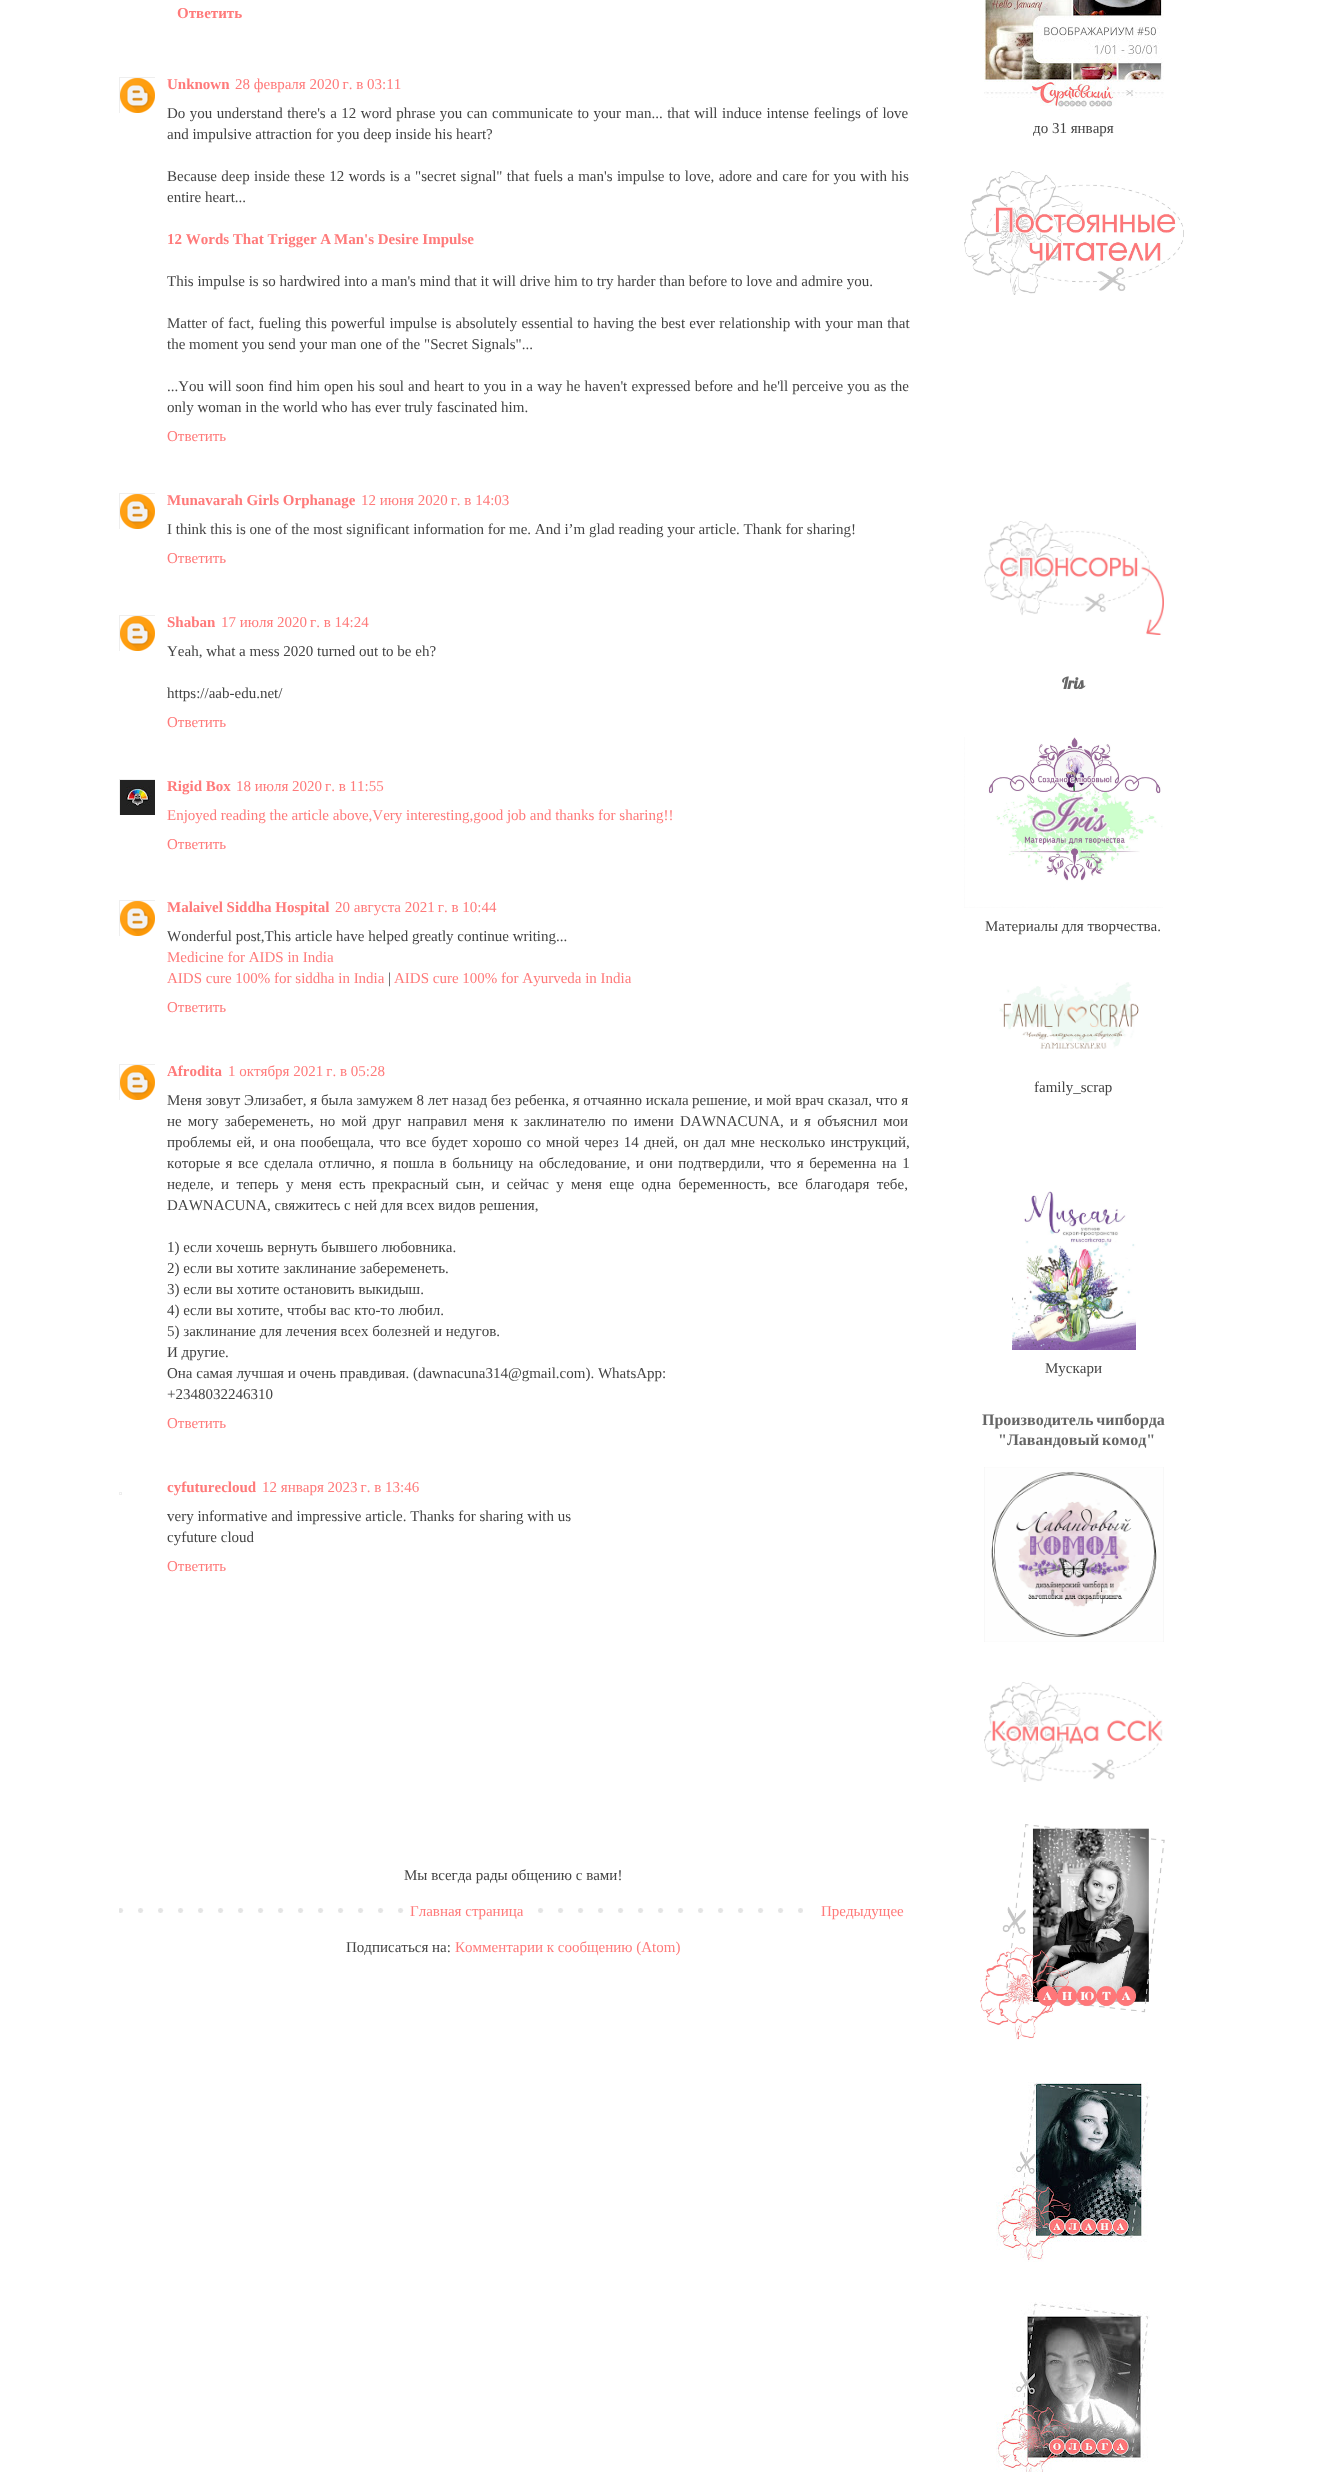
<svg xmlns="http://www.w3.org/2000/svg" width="1327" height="2472">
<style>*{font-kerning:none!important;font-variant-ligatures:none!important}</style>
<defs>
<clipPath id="clip1"><rect x="119" y="77" width="36" height="36"/></clipPath>
<clipPath id="clip2"><rect x="119" y="493" width="36" height="36"/></clipPath>
<clipPath id="clip3"><rect x="119" y="615" width="36" height="36"/></clipPath>
<clipPath id="clip4"><rect x="119" y="779" width="36" height="36"/></clipPath>
<clipPath id="clip5"><rect x="119" y="900" width="36" height="36"/></clipPath>
<clipPath id="clip6"><rect x="119" y="1064" width="36" height="36"/></clipPath>
</defs>
<rect width="100%" height="100%" fill="#fff"/>
<text x="177" y="18" style="font-family:Liberation Serif;font-size:15px;font-weight:bold;fill:#ff7a7a">Ответить</text>
<g clip-path="url(#clip1)">
<rect x="119.5" y="77.5" width="36" height="36" fill="none" stroke="#eee"/>
</g>
<image x="120" y="78" width="35" height="35" href="media/1.png"/>
<text x="167" y="89" style="font-family:Liberation Serif;font-size:15px;font-weight:bold;fill:#ff7a7a">Unknown</text>
<text x="235" y="89" style="font-family:Liberation Serif;font-size:15px;fill:#ff7a7a">28 февраля 2020 г. в 03:11</text>
<text x="167" y="118" word-spacing="0.75" style="font-family:Liberation Serif;font-size:15px;fill:#444">Do you understand there's a 12 word phrase you can communicate to your man... that will induce intense feelings of love</text>
<text x="167" y="139" style="font-family:Liberation Serif;font-size:15px;fill:#444">and impulsive attraction for you deep inside his heart?</text>
<text x="167" y="181" word-spacing="0.6" style="font-family:Liberation Serif;font-size:15px;fill:#444">Because deep inside these 12 words is a "secret signal" that fuels a man's impulse to love, adore and care for you with his</text>
<text x="167" y="202" style="font-family:Liberation Serif;font-size:15px;fill:#444">entire heart...</text>
<text x="167" y="244" style="font-family:Liberation Serif;font-size:15px;font-weight:bold;fill:#ff7a7a">12 Words That Trigger A</text>
<text x="334" y="244" style="font-family:Liberation Serif;font-size:15px;font-weight:bold;fill:#ff7a7a">Man's Desire Impulse</text>
<text x="167" y="286" style="font-family:Liberation Serif;font-size:15px;fill:#444">This impulse is so hardwired into a man's mind that it will drive him to try harder than before to love and admire you.</text>
<text x="167" y="328" word-spacing="0.5" style="font-family:Liberation Serif;font-size:15px;fill:#444">Matter of fact, fueling this powerful impulse is absolutely essential to having the best ever relationship with your man that</text>
<text x="167" y="349" style="font-family:Liberation Serif;font-size:15px;fill:#444">the moment you send your man one of the "Secret Signals"...</text>
<text x="167" y="391" word-spacing="0.4" style="font-family:Liberation Serif;font-size:15px;fill:#444">...You will soon find him open his soul and heart to you in a way he haven't expressed before and he'll perceive you as the</text>
<text x="167" y="412" style="font-family:Liberation Serif;font-size:15px;fill:#444">only woman in the world who has ever truly fascinated him.</text>
<text x="167" y="441" style="font-family:Liberation Serif;font-size:15px;fill:#ff7a7a">Ответить</text>
<g clip-path="url(#clip2)">
<rect x="119.5" y="493.5" width="36" height="36" fill="none" stroke="#eee"/>
</g>
<image x="120" y="494" width="35" height="35" href="media/1.png"/>
<text x="167" y="505" style="font-family:Liberation Serif;font-size:15px;font-weight:bold;fill:#ff7a7a">Munavarah Girls Orphanage</text>
<text x="361" y="505" style="font-family:Liberation Serif;font-size:15px;fill:#ff7a7a">12 июня 2020 г. в 14:03</text>
<text x="167" y="534" style="font-family:Liberation Serif;font-size:15px;fill:#444">I think this is one of the most significant information for me. And i’m glad reading your article. Thank for sharing!</text>
<text x="167" y="563" style="font-family:Liberation Serif;font-size:15px;fill:#ff7a7a">Ответить</text>
<g clip-path="url(#clip3)">
<rect x="119.5" y="615.5" width="36" height="36" fill="none" stroke="#eee"/>
</g>
<image x="120" y="616" width="35" height="35" href="media/1.png"/>
<text x="167" y="627" style="font-family:Liberation Serif;font-size:15px;font-weight:bold;fill:#ff7a7a">Shaban</text>
<text x="221" y="627" style="font-family:Liberation Serif;font-size:15px;fill:#ff7a7a">17 июля 2020 г. в 14:24</text>
<text x="167" y="656" style="font-family:Liberation Serif;font-size:15px;fill:#444">Yeah, what a mess 2020 turned out to be eh?</text>
<text x="167" y="698" style="font-family:Liberation Serif;font-size:15px;fill:#444">https://aab-edu.net/</text>
<text x="167" y="727" style="font-family:Liberation Serif;font-size:15px;fill:#ff7a7a">Ответить</text>
<g clip-path="url(#clip4)">
<rect x="119.5" y="779.5" width="37" height="37" fill="none" stroke="#eee"/>
</g>
<image x="120" y="780" width="35" height="35" href="media/2.png"/>
<text x="167" y="791" style="font-family:Liberation Serif;font-size:15px;font-weight:bold;fill:#ff7a7a">Rigid Box</text>
<text x="236" y="791" style="font-family:Liberation Serif;font-size:15px;fill:#ff7a7a">18 июля 2020 г. в 11:55</text>
<text x="167" y="820" style="font-family:Liberation Serif;font-size:15px;fill:#ff7a7a">Enjoyed reading the article above,Very interesting,good job and thanks for sharing!!</text>
<text x="167" y="849" style="font-family:Liberation Serif;font-size:15px;fill:#ff7a7a">Ответить</text>
<g clip-path="url(#clip5)">
<rect x="119.5" y="900.5" width="36" height="36" fill="none" stroke="#eee"/>
</g>
<image x="120" y="901" width="35" height="35" href="media/1.png"/>
<text x="167" y="912" style="font-family:Liberation Serif;font-size:15px;font-weight:bold;fill:#ff7a7a">Malaivel Siddha Hospital</text>
<text x="335" y="912" style="font-family:Liberation Serif;font-size:15px;fill:#ff7a7a">20 августа 2021 г. в 10:44</text>
<text x="167" y="941" style="font-family:Liberation Serif;font-size:15px;fill:#444">Wonderful post,This article have helped greatly continue writing...</text>
<text x="167" y="962" style="font-family:Liberation Serif;font-size:15px;fill:#ff7a7a">Medicine for AIDS in India</text>
<text x="167" y="983" style="font-family:Liberation Serif;font-size:15px;fill:#ff7a7a">AIDS cure 100% for siddha in India</text>
<text x="388" y="983" style="font-family:Liberation Serif;font-size:15px;fill:#444">|</text>
<text x="394" y="983" style="font-family:Liberation Serif;font-size:15px;fill:#ff7a7a">AIDS cure 100% for Ayurveda in India</text>
<text x="167" y="1012" style="font-family:Liberation Serif;font-size:15px;fill:#ff7a7a">Ответить</text>
<g clip-path="url(#clip6)">
<rect x="119.5" y="1064.5" width="36" height="36" fill="none" stroke="#eee"/>
</g>
<image x="120" y="1065" width="35" height="35" href="media/1.png"/>
<text x="167" y="1076" style="font-family:Liberation Serif;font-size:15px;font-weight:bold;fill:#ff7a7a">Afrodita</text>
<text x="228" y="1076" style="font-family:Liberation Serif;font-size:15px;fill:#ff7a7a">1 октября 2021 г. в 05:28</text>
<text x="167" y="1105" style="font-family:Liberation Serif;font-size:15px;fill:#444">Меня зовут Элизабет, я была замужем 8 лет назад без ребенка, я отчаянно искала</text>
<text x="692" y="1105" style="font-family:Liberation Serif;font-size:15px;fill:#444">решение, и мой врач сказал, что я</text>
<text x="167" y="1126" word-spacing="2.4" style="font-family:Liberation Serif;font-size:15px;fill:#444">не могу забеременеть, но мой друг направил меня к заклинателю по имени DAWNACUNA, и я объяснил</text>
<text x="883" y="1126" style="font-family:Liberation Serif;font-size:15px;fill:#444">мои</text>
<text x="167" y="1147" word-spacing="1.4" style="font-family:Liberation Serif;font-size:15px;fill:#444">проблемы ей, и она пообещала, что все будет хорошо со мной через 14 дней, он дал мне несколько инструкций,</text>
<text x="167" y="1168" word-spacing="1.75" style="font-family:Liberation Serif;font-size:15px;fill:#444">которые я все сделала отлично, я пошла в больницу на обследование, и они подтвердили, что я беременна на 1</text>
<text x="167" y="1189" word-spacing="3.5" style="font-family:Liberation Serif;font-size:15px;fill:#444">неделе, и теперь у меня есть</text>
<text x="372" y="1189" word-spacing="3.5" style="font-family:Liberation Serif;font-size:15px;fill:#444">прекрасный сын, и сейчас у меня еще одна беременность, все благодаря тебе,</text>
<text x="167" y="1210" style="font-family:Liberation Serif;font-size:15px;fill:#444">DAWNACUNA, свяжитесь с ней для всех видов решения,</text>
<text x="167" y="1252" style="font-family:Liberation Serif;font-size:15px;fill:#444">1) если хочешь вернуть бывшего любовника.</text>
<text x="167" y="1273" style="font-family:Liberation Serif;font-size:15px;fill:#444">2) если вы хотите заклинание забеременеть.</text>
<text x="167" y="1294" style="font-family:Liberation Serif;font-size:15px;fill:#444">3) если вы хотите остановить выкидыш.</text>
<text x="167" y="1315" style="font-family:Liberation Serif;font-size:15px;fill:#444">4) если вы хотите, чтобы вас кто-то любил.</text>
<text x="167" y="1336" style="font-family:Liberation Serif;font-size:15px;fill:#444">5) заклинание для лечения всех болезней и недугов.</text>
<text x="167" y="1357" style="font-family:Liberation Serif;font-size:15px;fill:#444">И другие.</text>
<text x="167" y="1378" style="font-family:Liberation Serif;font-size:15px;fill:#444">Она самая лучшая и очень правдивая. (dawnacuna314@gmail.com). WhatsApp:</text>
<text x="167" y="1399" style="font-family:Liberation Serif;font-size:15px;fill:#444">+2348032246310</text>
<text x="167" y="1428" style="font-family:Liberation Serif;font-size:15px;fill:#ff7a7a">Ответить</text>
<rect x="119.5" y="1492.5" width="2" height="2" fill="none" stroke="#eee"/>
<text x="167" y="1492" style="font-family:Liberation Serif;font-size:15px;font-weight:bold;fill:#ff7a7a">cyfuturecloud</text>
<text x="262" y="1492" style="font-family:Liberation Serif;font-size:15px;fill:#ff7a7a">12 января 2023 г. в 13:46</text>
<text x="167" y="1521" style="font-family:Liberation Serif;font-size:15px;fill:#444">very informative and impressive article. Thanks for sharing with us</text>
<text x="167" y="1542" style="font-family:Liberation Serif;font-size:15px;fill:#444">cyfuture cloud</text>
<text x="167" y="1571" style="font-family:Liberation Serif;font-size:15px;fill:#ff7a7a">Ответить</text>
<text x="404" y="1880" style="font-family:Liberation Serif;font-size:15px;fill:#444">Мы всегда рады общению с вами!</text>
<image x="119" y="1908" width="684" height="5" href="media/3.png"/>
<rect x="418" y="1908" width="106" height="5" fill="#fff"/>
<text x="410" y="1916" style="font-family:Liberation Serif;font-size:15px;fill:#ff7a7a">Главная страница</text>
<text x="821" y="1916" style="font-family:Liberation Serif;font-size:15px;fill:#ff7a7a">Предыдущее</text>
<text x="346" y="1952" style="font-family:Liberation Serif;font-size:15px;fill:#444">Подписаться на:</text>
<text x="455" y="1952" style="font-family:Liberation Serif;font-size:15px;fill:#ff7a7a">Комментарии к сообщению (Atom)</text>
<image x="984" y="0" width="180" height="110" href="media/4.png"/>
<text x="1033" y="133" style="font-family:Liberation Serif;font-size:15px;fill:#444">до 31 января</text>
<image x="964" y="171" width="220" height="124" href="media/5.png"/>
<image x="984" y="521" width="180" height="114" href="media/6.png"/>
<text x="1062" y="689" style="font-family:Lobster;font-size:16px;font-weight:bold;fill:#666">Iris</text>
<image x="964" y="737" width="199" height="171" href="media/7.png"/>
<text x="985" y="931" style="font-family:Liberation Serif;font-size:15px;fill:#444">Материалы для творчества.</text>
<image x="999" y="982" width="140" height="67" href="media/8.png"/>
<text x="1034" y="1092" style="font-family:Liberation Serif;font-size:15px;fill:#444">family_scrap</text>
<image x="1012" y="1191" width="124" height="159" href="media/9.png"/>
<text x="1045" y="1373" style="font-family:Liberation Serif;font-size:15px;fill:#444">Мускари</text>
<text x="982" y="1425" word-spacing="-1" style="font-family:Liberation Serif;font-size:16px;font-weight:bold;fill:#666">Производитель чипборда</text>
<text x="998" y="1445" word-spacing="-1" style="font-family:Liberation Serif;font-size:16px;font-weight:bold;fill:#666">"Лавандовый комод"</text>
<image x="984" y="1467" width="180" height="175" href="media/10.png"/>
<image x="984" y="1682" width="179" height="100" href="media/11.png"/>
<image x="980" y="1824" width="185" height="216" href="media/12.png"/>
<image x="996" y="2082" width="154" height="180" href="media/13.png"/>
<image x="996" y="2302" width="154" height="170" href="media/14.png"/>
</svg>
